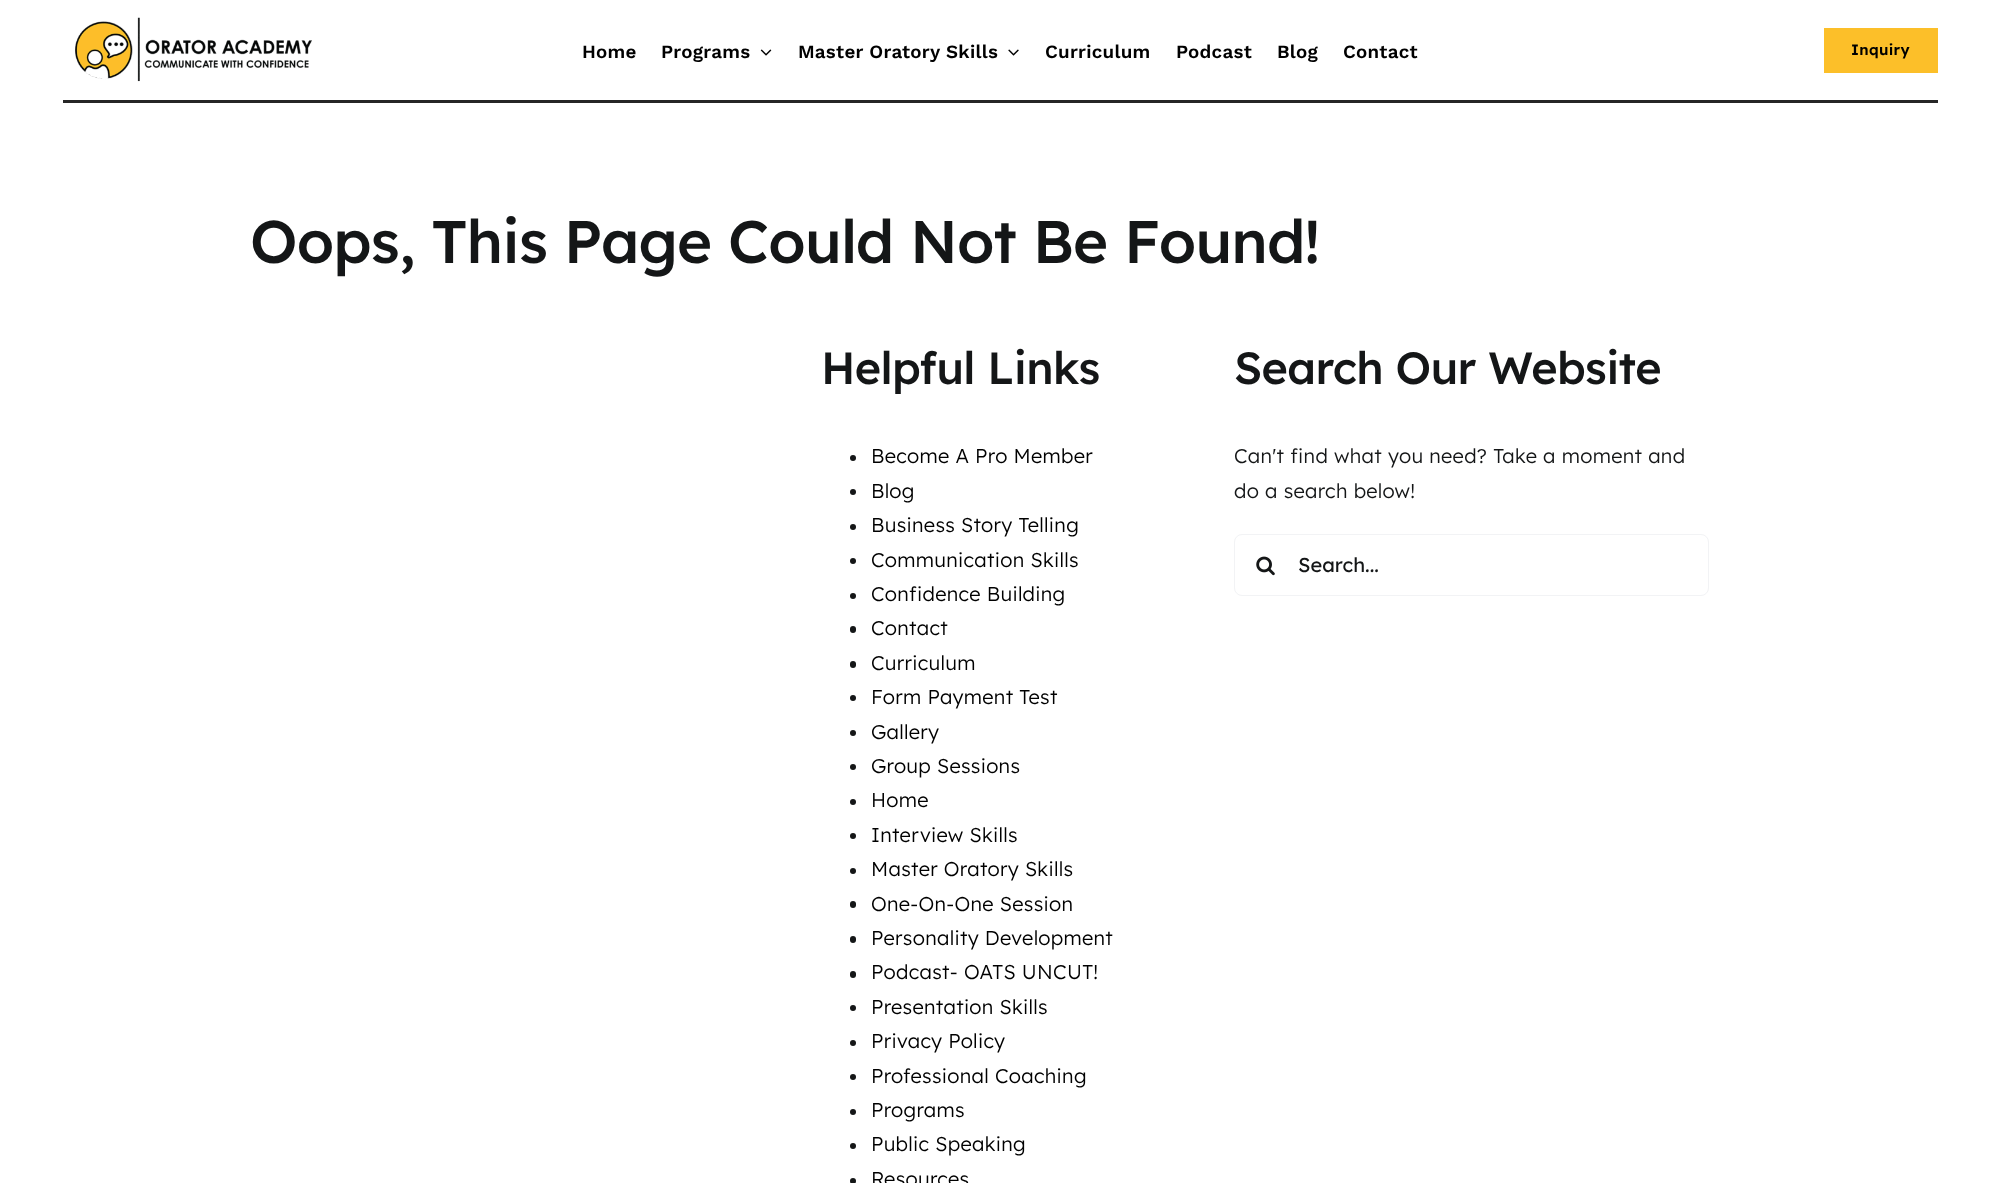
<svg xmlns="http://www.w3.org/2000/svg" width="1999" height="1183">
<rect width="100%" height="100%" fill="#fff"/>
<image x="75" y="17" width="237" height="65" href="media/1.png"/>
<text x="582" y="58" style="font-family:Work Sans;font-size:18.75px;font-weight:600;letter-spacing:0.25px;fill:#000">Home</text>
<text x="661" y="58" style="font-family:Work Sans;font-size:18.75px;font-weight:600;letter-spacing:0.25px;fill:#000">Programs</text>
<image x="760" y="49" width="12" height="7" href="media/2.png"/>
<text x="798" y="58" style="font-family:Work Sans;font-size:18.75px;font-weight:600;letter-spacing:0.25px;fill:#000">Master Oratory Skills</text>
<image x="1008" y="49" width="11" height="7" href="media/3.png"/>
<text x="1045" y="58" style="font-family:Work Sans;font-size:18.75px;font-weight:600;letter-spacing:0.25px;fill:#000">Curriculum</text>
<text x="1176" y="58" style="font-family:Work Sans;font-size:18.75px;font-weight:600;letter-spacing:0.25px;fill:#000">Podcast</text>
<text x="1277" y="58" style="font-family:Work Sans;font-size:18.75px;font-weight:600;letter-spacing:0.25px;fill:#000">Blog</text>
<text x="1343" y="58" style="font-family:Work Sans;font-size:18.75px;font-weight:600;letter-spacing:0.25px;fill:#000">Contact</text>
<rect x="1824" y="28" width="114" height="45" fill="#fcbf29"/>
<text x="1851" y="55" style="font-family:Lexend;font-size:15px;font-weight:600;letter-spacing:0.3px;fill:#000">Inquiry</text>
<rect x="63" y="100" width="1875" height="3" fill="#262626"/>
<text x="250" y="263" style="font-family:Lexend;font-size:60px;font-weight:500;letter-spacing:-0.9px;fill:#141617">Oops, This Page Could Not Be Found!</text>
<text x="821" y="384" style="font-family:Lexend;font-size:45px;font-weight:500;letter-spacing:-0.7px;fill:#141617">Helpful Links</text>
<circle cx="853" cy="458" r="3" fill="#141617"/>
<text x="871" y="463" style="font-family:Lexend;font-size:20px;font-weight:300;letter-spacing:0.3px;fill:#000">Become A Pro Member</text>
<circle cx="853" cy="492" r="3" fill="#141617"/>
<text x="871" y="498" style="font-family:Lexend;font-size:20px;font-weight:300;letter-spacing:0.3px;fill:#000">Blog</text>
<circle cx="853" cy="527" r="3" fill="#141617"/>
<text x="871" y="532" style="font-family:Lexend;font-size:20px;font-weight:300;letter-spacing:0.3px;fill:#000">Business Story Telling</text>
<circle cx="853" cy="561" r="3" fill="#141617"/>
<text x="871" y="567" style="font-family:Lexend;font-size:20px;font-weight:300;letter-spacing:0.3px;fill:#000">Communication Skills</text>
<circle cx="853" cy="596" r="3" fill="#141617"/>
<text x="871" y="601" style="font-family:Lexend;font-size:20px;font-weight:300;letter-spacing:0.3px;fill:#000">Confidence Building</text>
<rect x="850" y="626" width="6" height="7" rx="3" fill="#141617"/>
<text x="871" y="635" style="font-family:Lexend;font-size:20px;font-weight:300;letter-spacing:0.3px;fill:#000">Contact</text>
<rect x="850" y="661" width="6" height="7" rx="3" fill="#141617"/>
<text x="871" y="670" style="font-family:Lexend;font-size:20px;font-weight:300;letter-spacing:0.3px;fill:#000">Curriculum</text>
<circle cx="853" cy="698" r="3" fill="#141617"/>
<text x="871" y="704" style="font-family:Lexend;font-size:20px;font-weight:300;letter-spacing:0.3px;fill:#000">Form Payment Test</text>
<circle cx="853" cy="733" r="3" fill="#141617"/>
<text x="871" y="739" style="font-family:Lexend;font-size:20px;font-weight:300;letter-spacing:0.3px;fill:#000">Gallery</text>
<circle cx="853" cy="767" r="3" fill="#141617"/>
<text x="871" y="773" style="font-family:Lexend;font-size:20px;font-weight:300;letter-spacing:0.3px;fill:#000">Group Sessions</text>
<circle cx="853" cy="802" r="3" fill="#141617"/>
<text x="871" y="807" style="font-family:Lexend;font-size:20px;font-weight:300;letter-spacing:0.3px;fill:#000">Home</text>
<circle cx="853" cy="836" r="3" fill="#141617"/>
<text x="871" y="842" style="font-family:Lexend;font-size:20px;font-weight:300;letter-spacing:0.3px;fill:#000">Interview Skills</text>
<circle cx="853" cy="871" r="3" fill="#141617"/>
<text x="871" y="876" style="font-family:Lexend;font-size:20px;font-weight:300;letter-spacing:0.3px;fill:#000">Master Oratory Skills</text>
<rect x="850" y="901" width="6" height="7" rx="3" fill="#141617"/>
<text x="871" y="911" style="font-family:Lexend;font-size:20px;font-weight:300;letter-spacing:0.3px;fill:#000">One-On-One Session</text>
<rect x="850" y="936" width="6" height="7" rx="3" fill="#141617"/>
<text x="871" y="945" style="font-family:Lexend;font-size:20px;font-weight:300;letter-spacing:0.3px;fill:#000">Personality Development</text>
<rect x="850" y="971" width="6" height="7" rx="3" fill="#141617"/>
<text x="871" y="979" style="font-family:Lexend;font-size:20px;font-weight:300;letter-spacing:0.3px;fill:#000">Podcast- OATS UNCUT!</text>
<circle cx="853" cy="1008" r="3" fill="#141617"/>
<text x="871" y="1014" style="font-family:Lexend;font-size:20px;font-weight:300;letter-spacing:0.3px;fill:#000">Presentation Skills</text>
<circle cx="853" cy="1043" r="3" fill="#141617"/>
<text x="871" y="1048" style="font-family:Lexend;font-size:20px;font-weight:300;letter-spacing:0.3px;fill:#000">Privacy Policy</text>
<circle cx="853" cy="1077" r="3" fill="#141617"/>
<text x="871" y="1083" style="font-family:Lexend;font-size:20px;font-weight:300;letter-spacing:0.3px;fill:#000">Professional Coaching</text>
<circle cx="853" cy="1112" r="3" fill="#141617"/>
<text x="871" y="1117" style="font-family:Lexend;font-size:20px;font-weight:300;letter-spacing:0.3px;fill:#000">Programs</text>
<circle cx="853" cy="1146" r="3" fill="#141617"/>
<text x="871" y="1151" style="font-family:Lexend;font-size:20px;font-weight:300;letter-spacing:0.3px;fill:#000">Public Speaking</text>
<circle cx="853" cy="1181" r="3" fill="#141617"/>
<text x="871" y="1186" style="font-family:Lexend;font-size:20px;font-weight:300;letter-spacing:0.3px;fill:#000">Resources</text>
<text x="1234" y="384" style="font-family:Lexend;font-size:45px;font-weight:500;letter-spacing:-0.7px;fill:#141617">Search Our Website</text>
<text x="1234" y="463" style="font-family:Lexend;font-size:20px;font-weight:300;letter-spacing:0.3px;fill:#141617">Can't find what you need? Take a moment and</text>
<text x="1234" y="498" style="font-family:Lexend;font-size:20px;font-weight:300;letter-spacing:0.3px;fill:#141617">do a search below!</text>
<rect x="1234.5" y="534.5" width="474" height="61" rx="7.5" fill="none" stroke="#f2f3f5"/>
<image x="1256" y="556" width="19" height="20" href="media/4.png"/>
<text x="1298" y="572" style="font-family:Lexend;font-size:20px;fill:#141617">Search...</text>
</svg>
